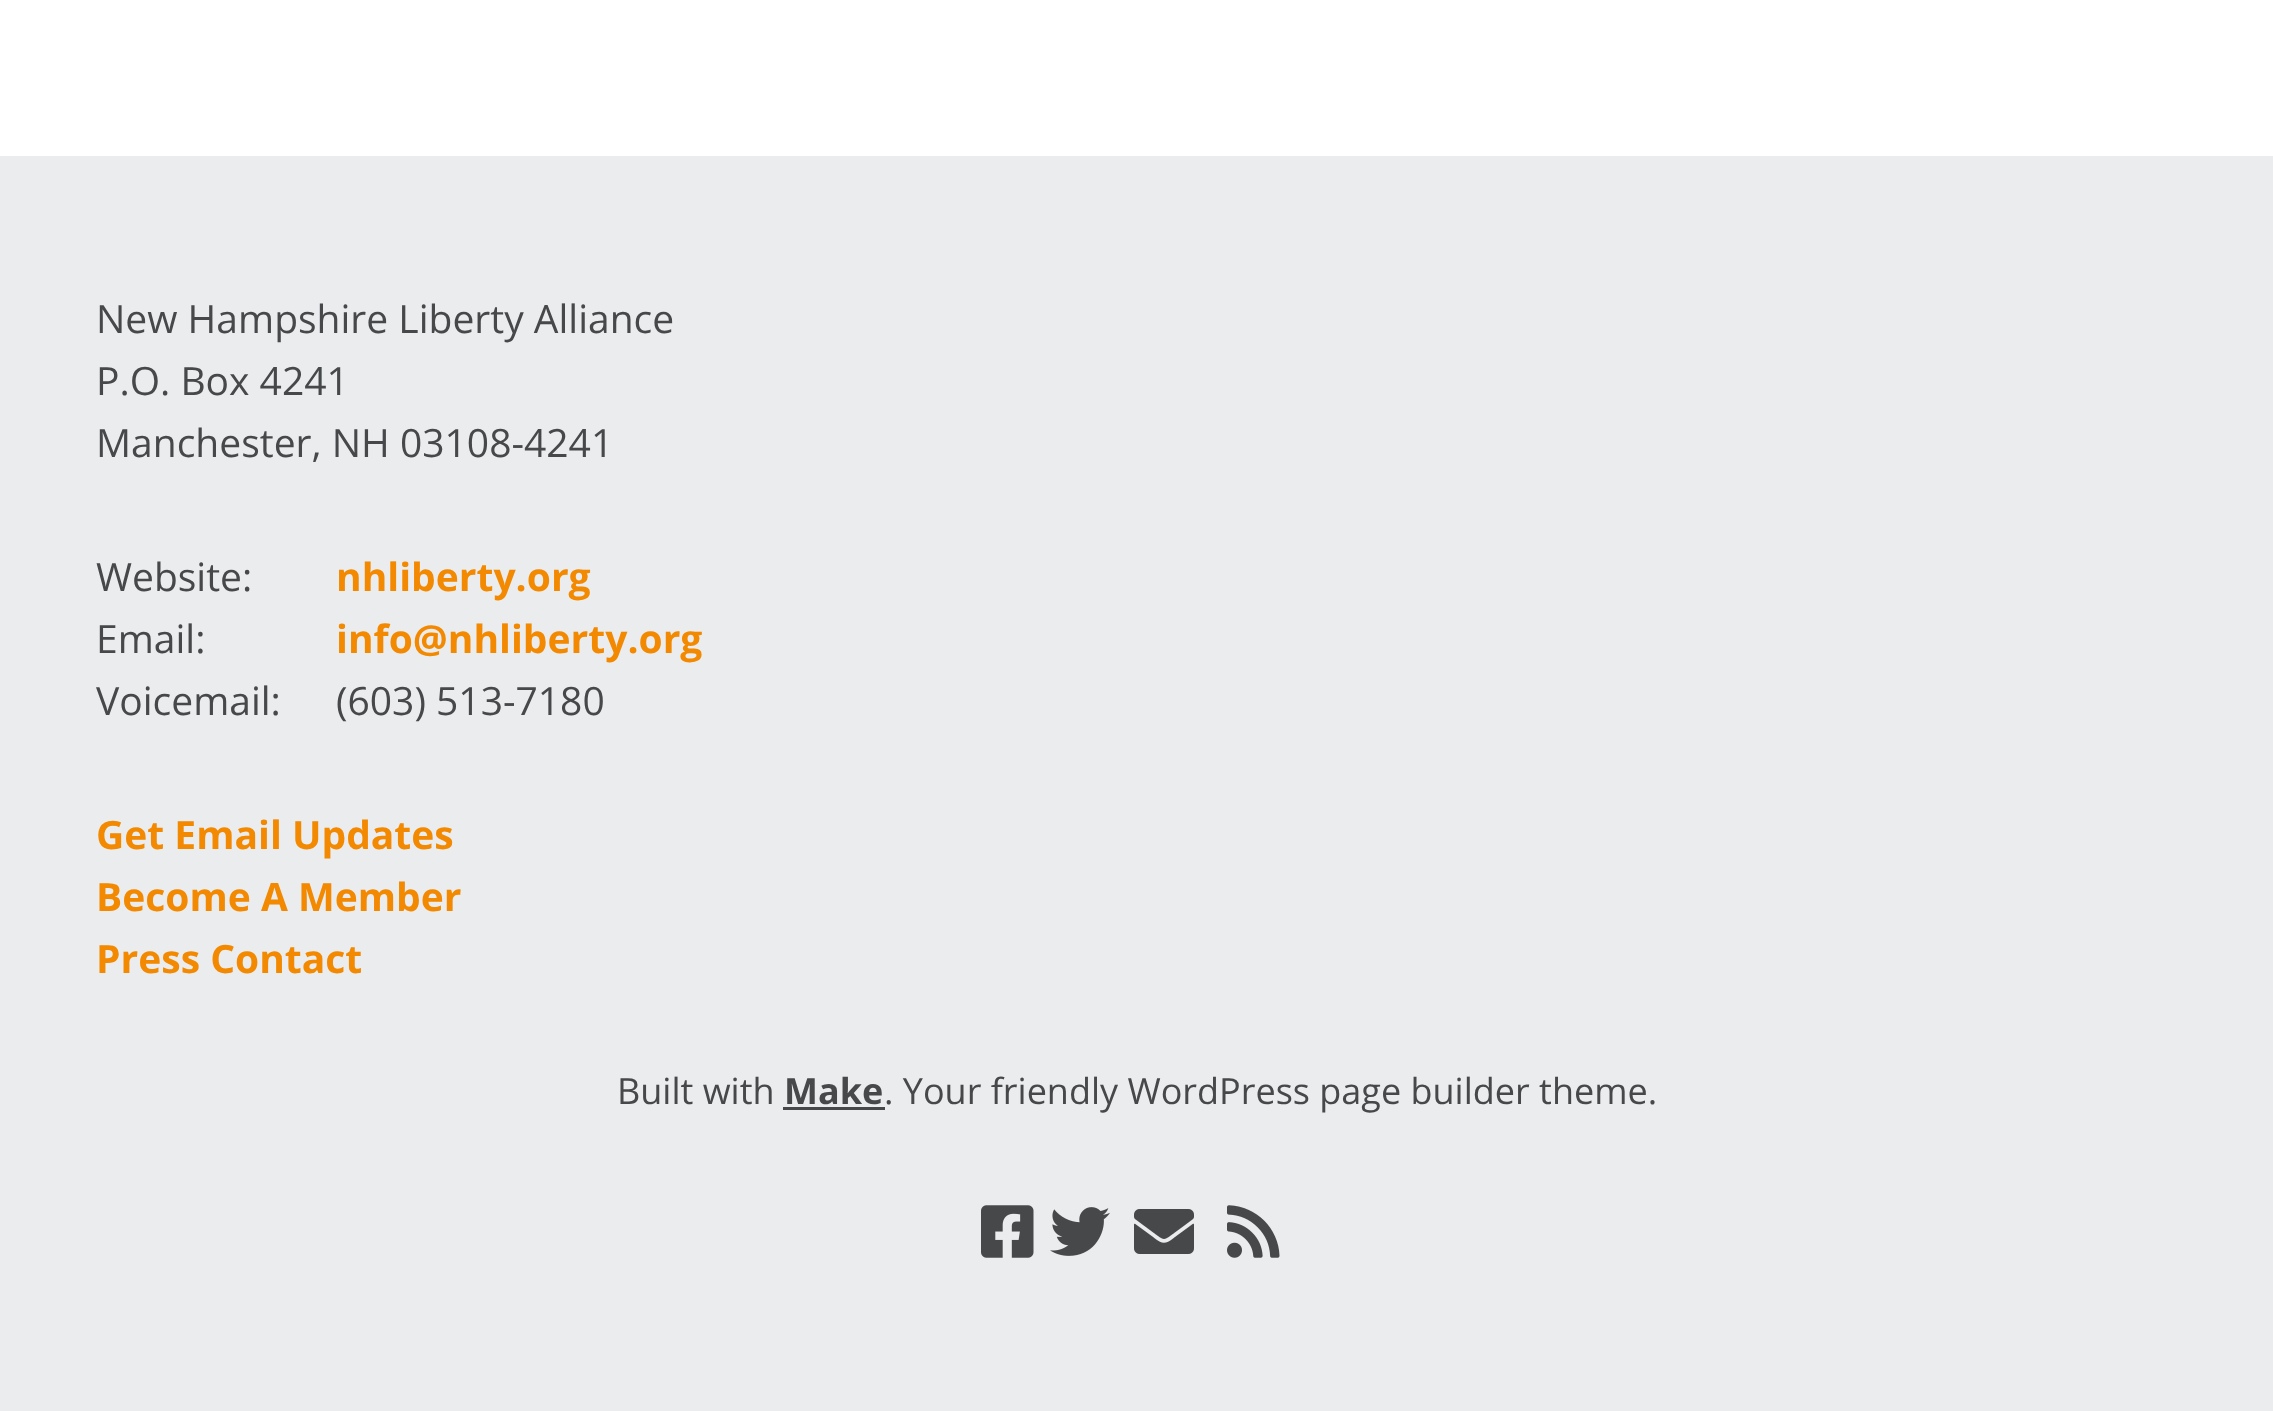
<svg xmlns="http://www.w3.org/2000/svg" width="2273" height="1411">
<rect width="100%" height="100%" fill="#fff"/>
<rect y="156" width="2273" height="1255" fill="#eaecee"/>
<text x="96" y="333" style="font-family:Open Sans;font-size:39px;fill:#464849">New Hampshire Liberty Alliance</text>
<text x="96" y="395" style="font-family:Open Sans;font-size:39px;fill:#464849">P.O. Box 4241</text>
<text x="96" y="457" style="font-family:Open Sans;font-size:39px;fill:#464849">Manchester, NH 03108-4241</text>
<text x="96" y="591" style="font-family:Open Sans;font-size:39px;fill:#464849">Website:</text>
<text x="336" y="591" style="font-family:Open Sans;font-size:39px;font-weight:bold;fill:#f28900">nhliberty.org</text>
<text x="96" y="653" style="font-family:Open Sans;font-size:39px;fill:#464849">Email:</text>
<text x="336" y="653" style="font-family:Open Sans;font-size:39px;font-weight:bold;fill:#f28900">info@nhliberty.org</text>
<text x="96" y="715" style="font-family:Open Sans;font-size:39px;fill:#464849">Voicemail:</text>
<text x="336" y="715" style="font-family:Open Sans;font-size:39px;fill:#464849">(603) 513-7180</text>
<text x="96" y="849" style="font-family:Open Sans;font-size:39px;font-weight:bold;fill:#f28900">Get Email Updates</text>
<text x="96" y="911" style="font-family:Open Sans;font-size:39px;font-weight:bold;fill:#f28900">Become A Member</text>
<text x="96" y="973" style="font-family:Open Sans;font-size:39px;font-weight:bold;fill:#f28900">Press Contact</text>
<text x="617" y="1104" style="font-family:Open Sans;font-size:36px;fill:#464849">Built with</text>
<text x="784" y="1104" style="font-family:Open Sans;font-size:36px;font-weight:bold;fill:#464849">Make</text>
<rect x="783" y="1107" width="102" height="3" fill="#464849"/>
<text x="884" y="1104" style="font-family:Open Sans;font-size:36px;fill:#464849">. Your friendly WordPress page builder theme.</text>
<image x="981" y="1205" width="53" height="53" href="media/1.png"/>
<image x="1050" y="1207" width="60" height="49" href="media/2.png"/>
<image x="1134" y="1209" width="60" height="45" href="media/3.png"/>
<image x="1227" y="1205" width="53" height="53" href="media/4.png"/>
</svg>
